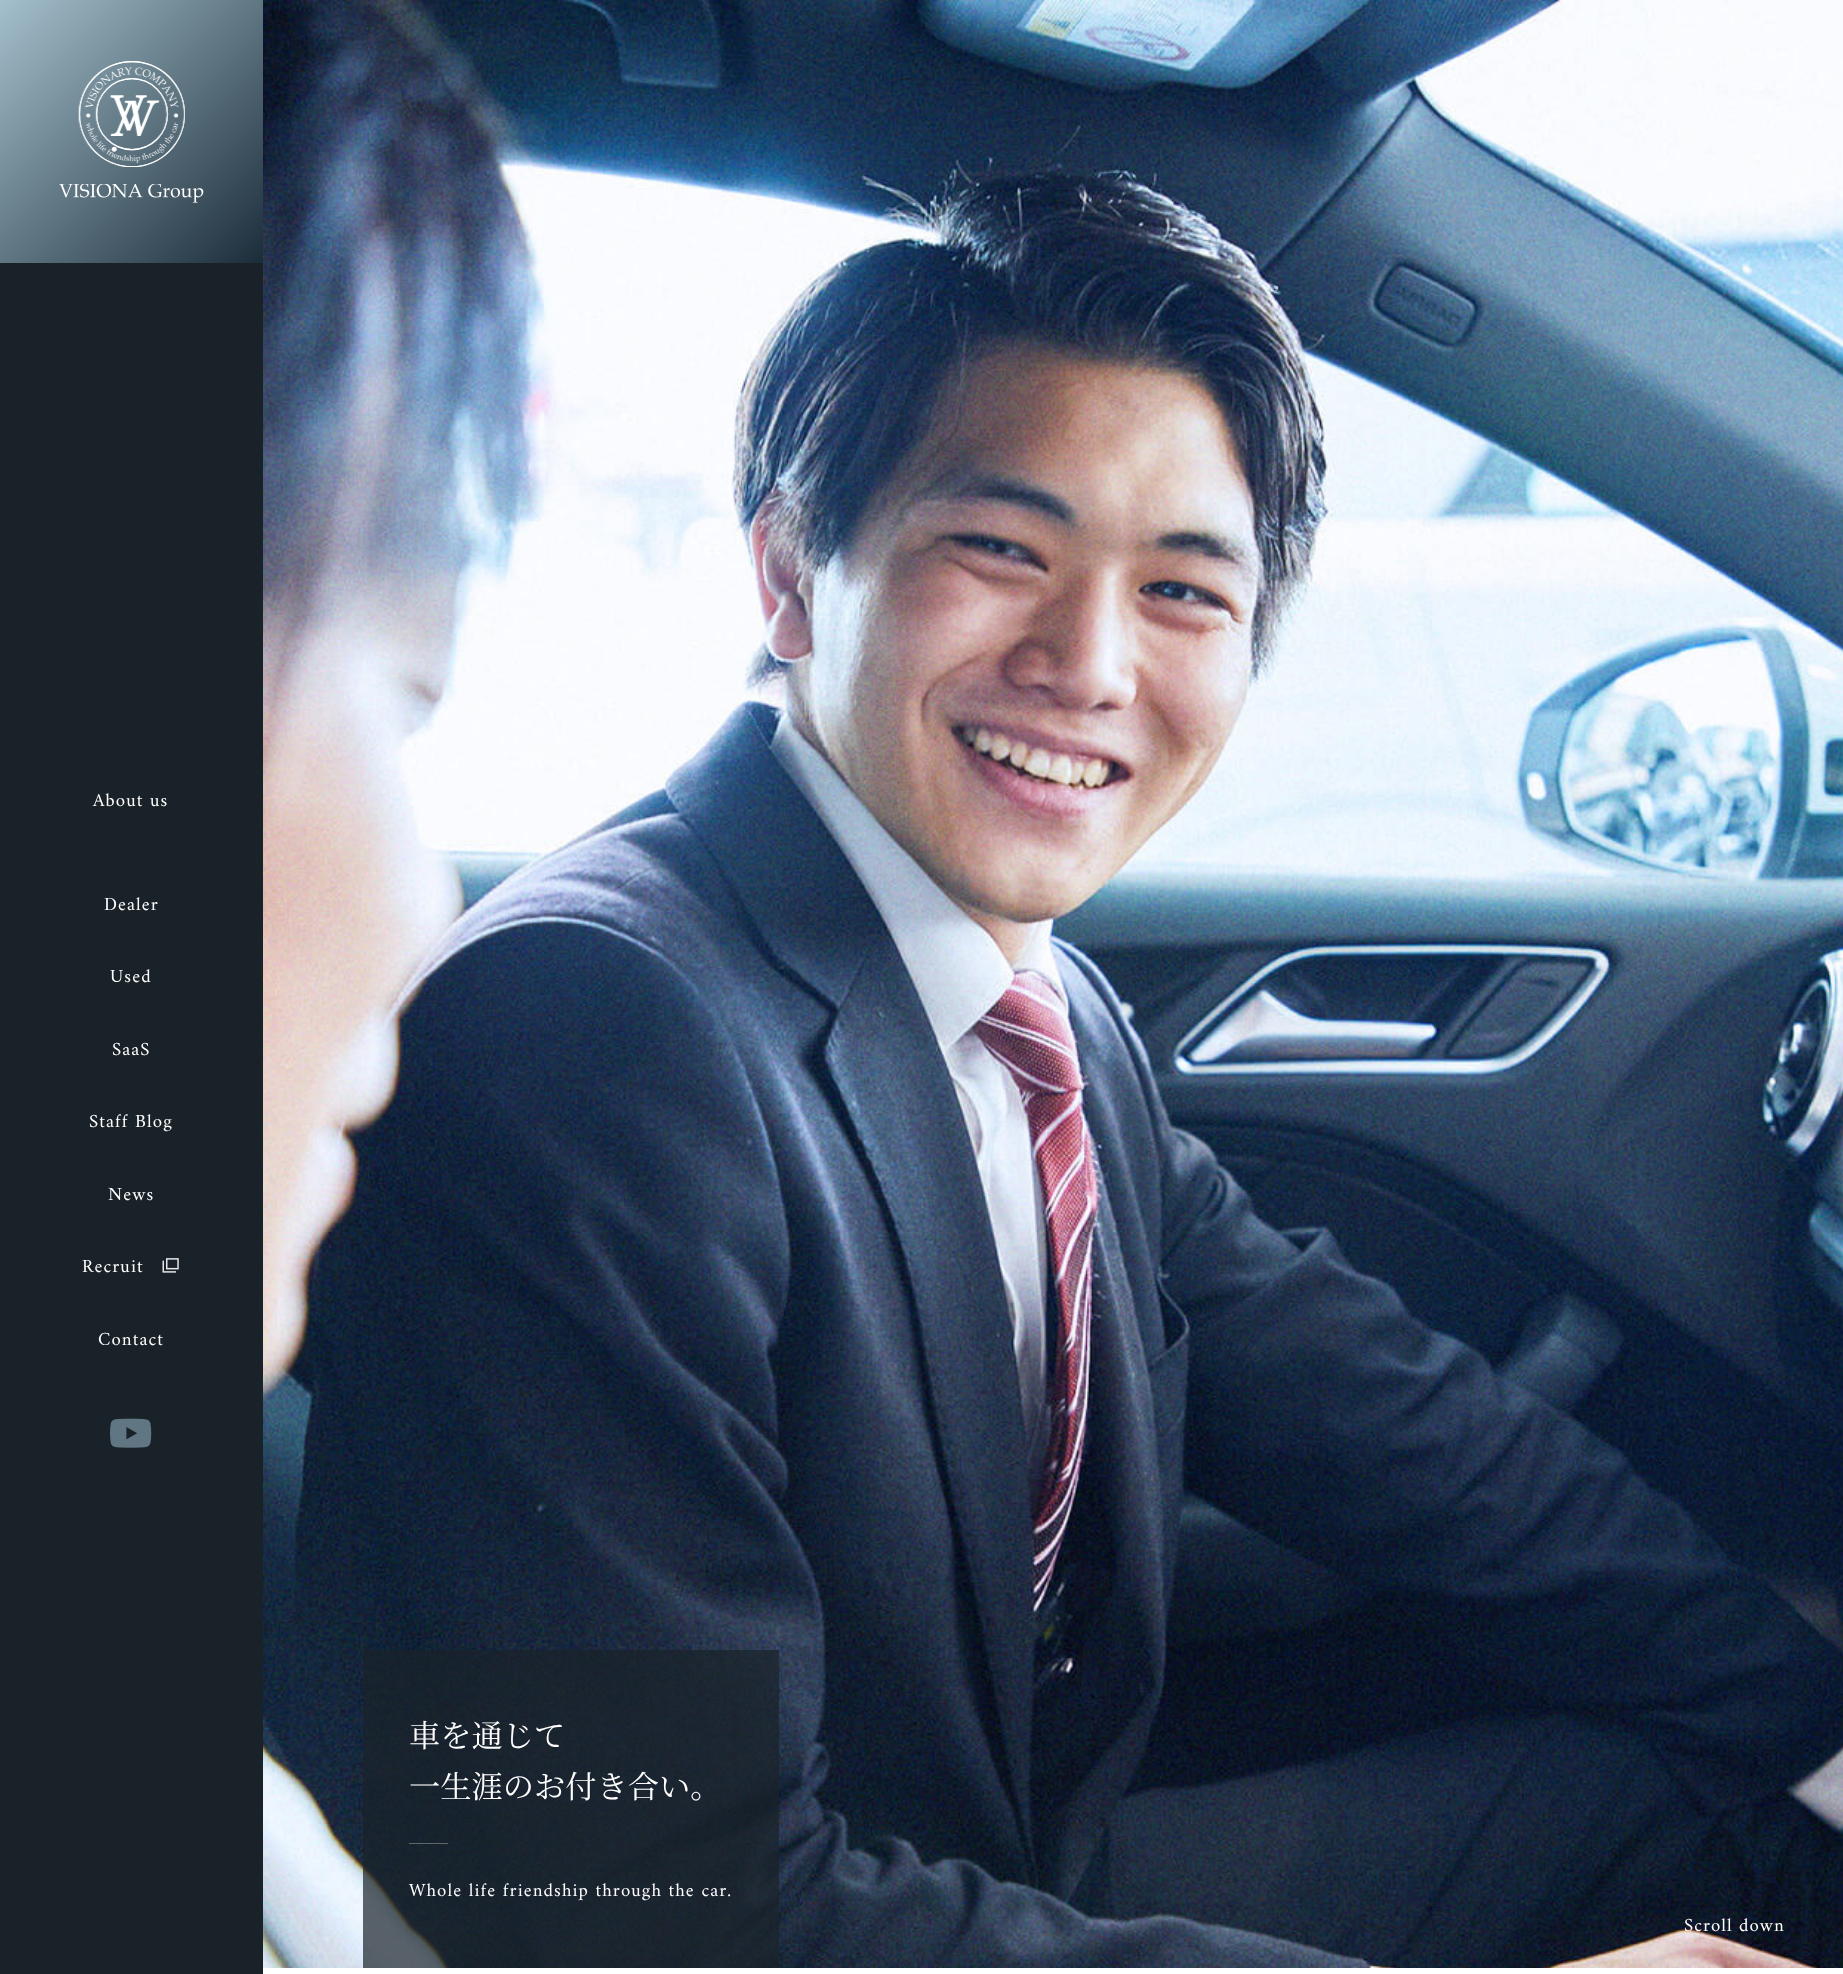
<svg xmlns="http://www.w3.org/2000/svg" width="1843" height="1974">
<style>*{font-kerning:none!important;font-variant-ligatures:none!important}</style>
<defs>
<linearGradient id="g1" gradientUnits="userSpaceOnUse" x1="0" y1="0" x2="263" y2="263"><stop offset="0" stop-color="#a4c0cc"/><stop offset="1" stop-color="#1c2d3a"/></linearGradient>
</defs>
<rect width="100%" height="100%" fill="#fff"/>
<rect y="263" width="263" height="1711" fill="#192229"/>
<rect width="263" height="263" fill="url(#g1)"/>
<image x="78" y="60" width="107" height="107" href="media/1.png"/>
<image x="59" y="184" width="145" height="19" href="media/2.png"/>
<text x="93" y="806" style="font-family:Amiri;font-size:18.75px;letter-spacing:1.1px;fill:#fff">About us</text>
<text x="104" y="910" style="font-family:Amiri;font-size:18.75px;letter-spacing:1.1px;fill:#fff">Dealer</text>
<text x="110" y="982" style="font-family:Amiri;font-size:18.75px;letter-spacing:1.1px;fill:#fff">Used</text>
<text x="112" y="1055" style="font-family:Amiri;font-size:18.75px;letter-spacing:1.1px;fill:#fff">SaaS</text>
<text x="89" y="1127" style="font-family:Amiri;font-size:18.75px;letter-spacing:1.1px;fill:#fff">Staff Blog</text>
<text x="108" y="1200" style="font-family:Amiri;font-size:18.75px;letter-spacing:1.1px;fill:#fff">News</text>
<text x="82" y="1272" style="font-family:Amiri;font-size:18.75px;letter-spacing:1.1px;fill:#fff">Recruit</text>
<image x="162" y="1258" width="17" height="15" href="media/3.png"/>
<text x="98" y="1345" style="font-family:Amiri;font-size:18.75px;letter-spacing:1.1px;fill:#fff">Contact</text>
<image x="110" y="1418" width="42" height="30" href="media/4.png"/>
<image x="263" y="0" width="1580" height="1968" href="media/5.png"/>
<rect x="363" y="1650" width="416" height="318" fill="#192229b3"/>
<text x="409" y="1747" style="font-family:Noto Serif JP;font-size:31.25px;fill:#fff">車を通じて</text>
<text x="409" y="1798" style="font-family:Noto Serif JP;font-size:31.25px;fill:#fff">一生涯のお付き合い。</text>
<rect x="409" y="1843" width="39" height="1" fill="#ffffff4d"/>
<text x="409" y="1896" style="font-family:Amiri;font-size:18.75px;letter-spacing:1.1px;fill:#fff">Whole life friendship through the car.</text>
<text x="1684" y="1931" style="font-family:Amiri;font-size:18.75px;letter-spacing:1px;fill:#fff">Scroll down</text>
</svg>
